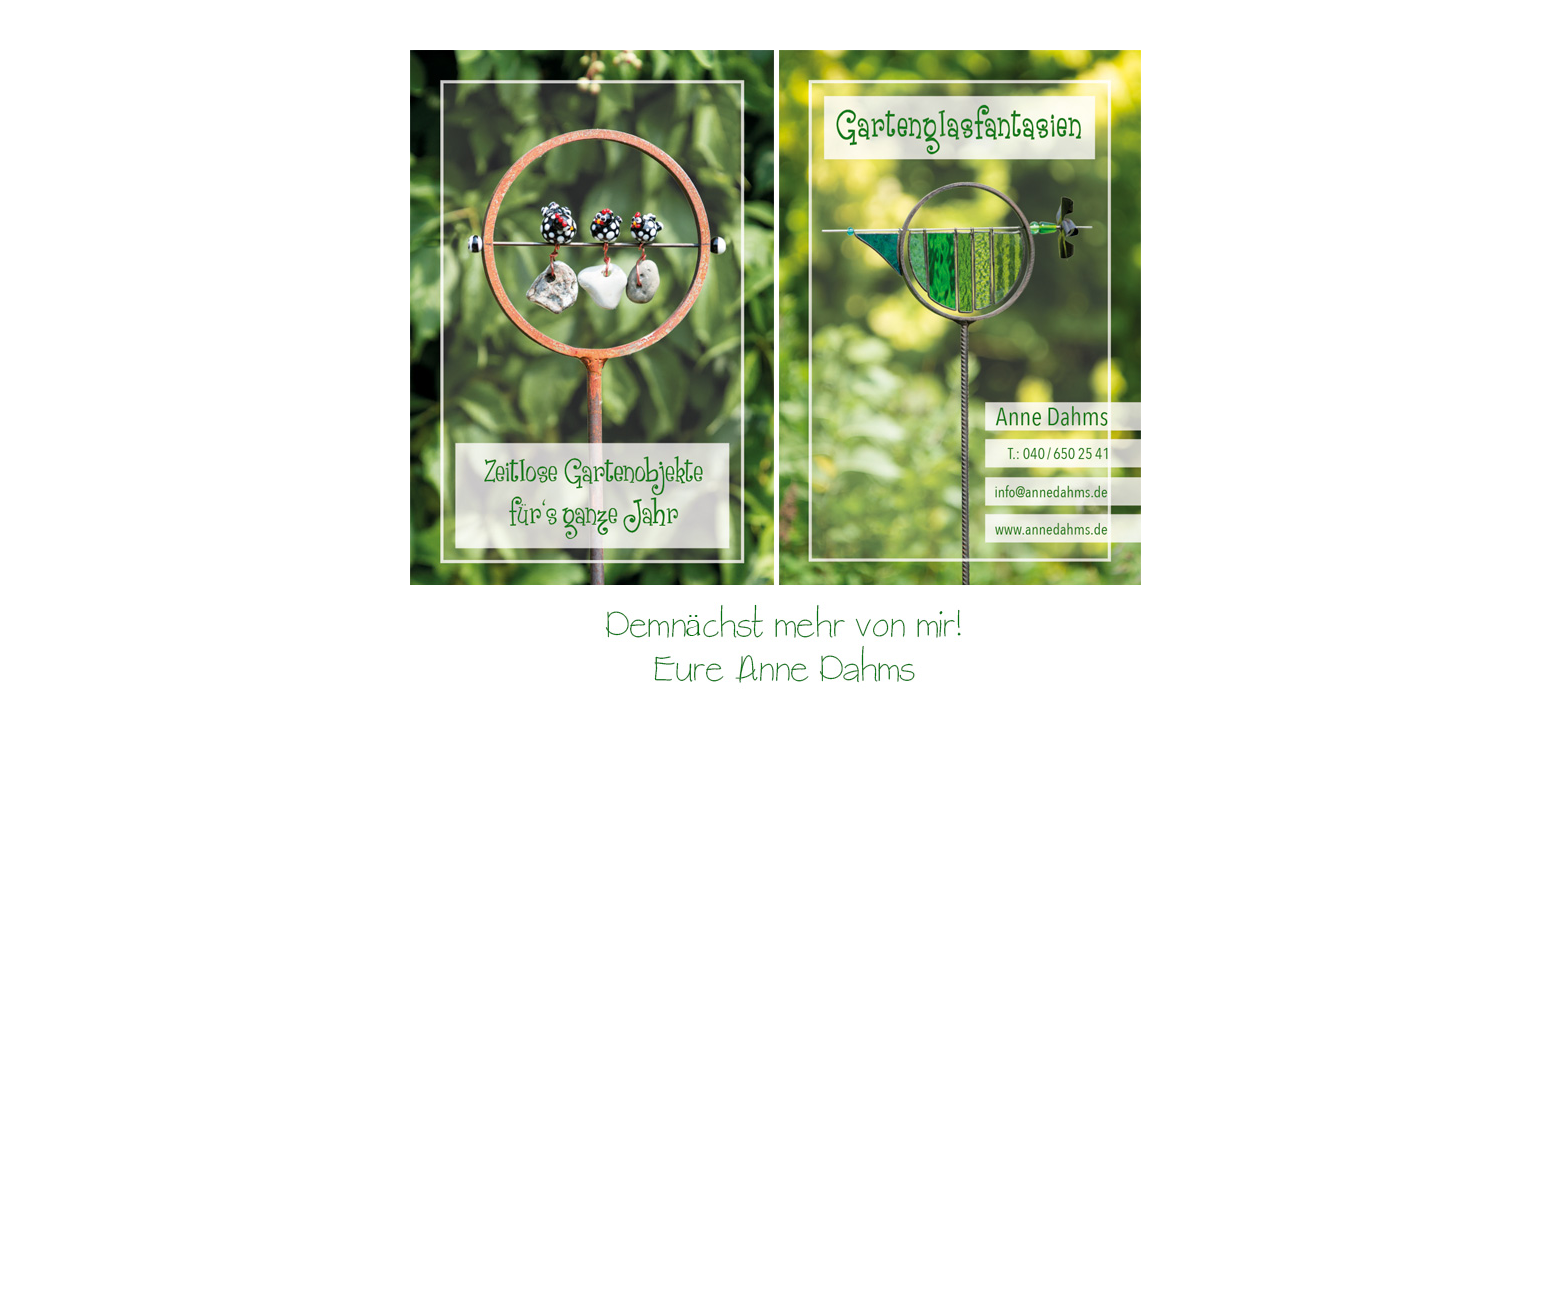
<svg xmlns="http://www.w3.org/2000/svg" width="1550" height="1306">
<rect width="100%" height="100%" fill="#fff"/>
<image x="410" y="50" width="731" height="639" href="media/1.png"/>
</svg>
